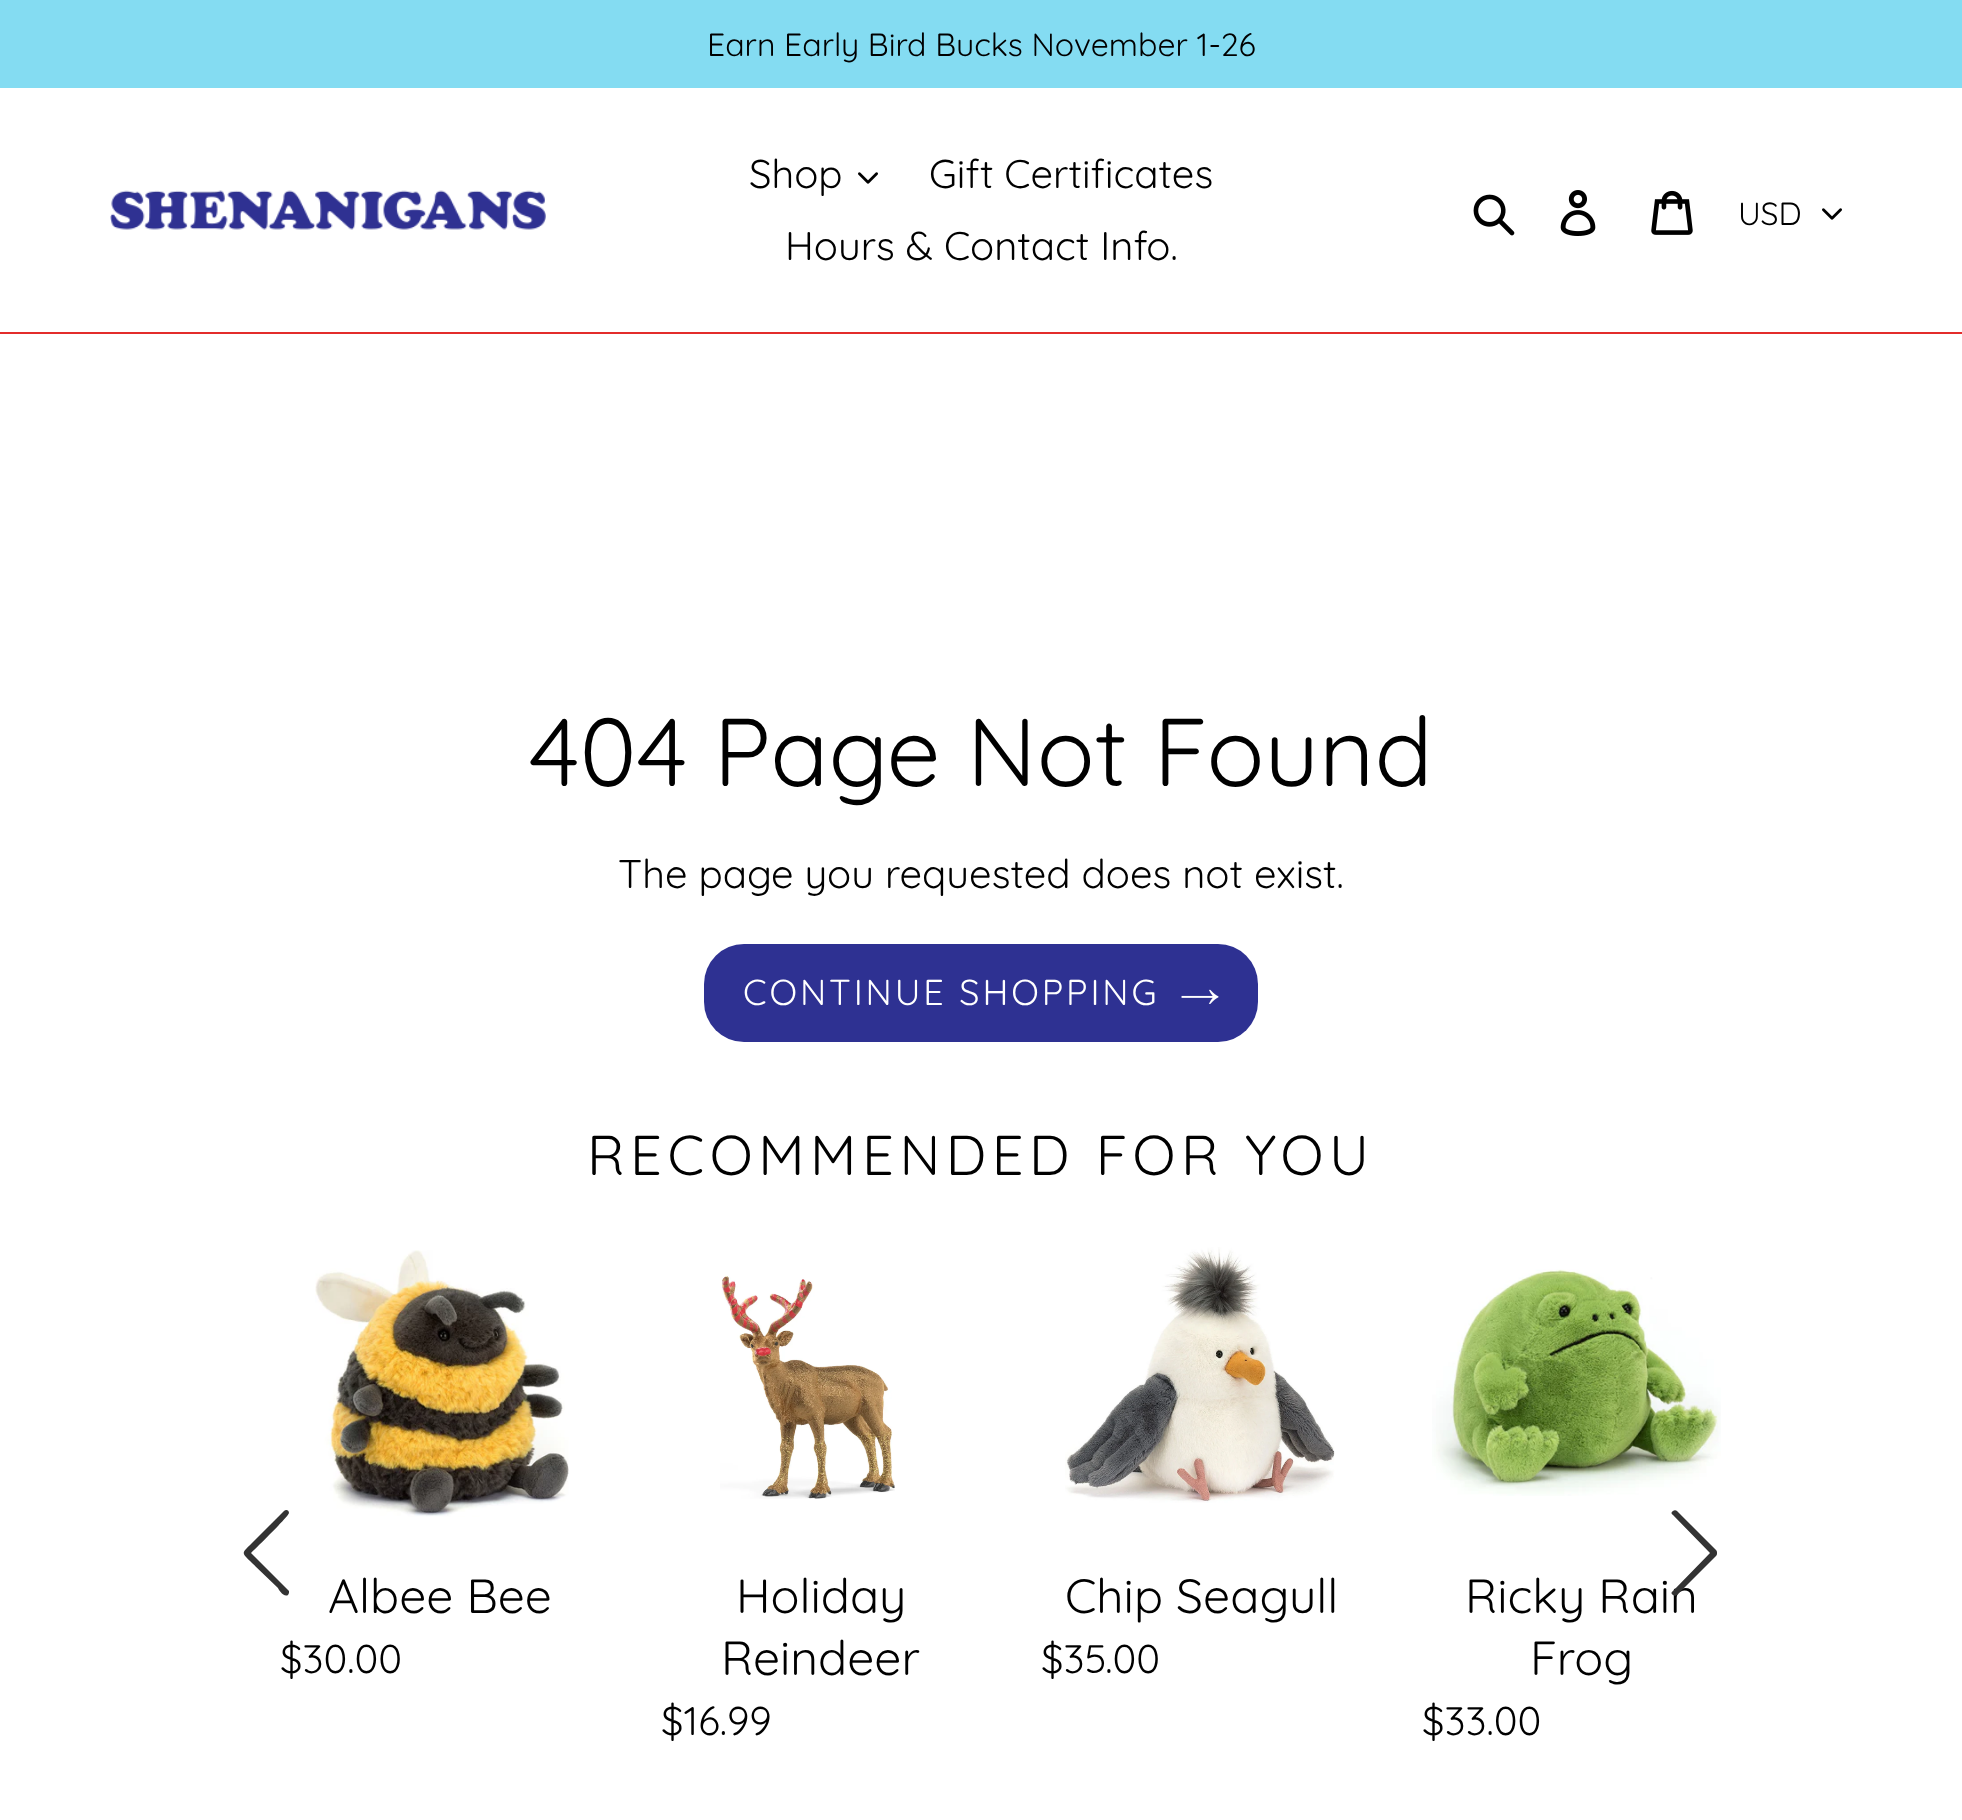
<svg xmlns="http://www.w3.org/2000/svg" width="1962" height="1820">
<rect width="100%" height="100%" fill="#fff"/>
<rect width="1962" height="88" fill="#84dcf2"/>
<text x="707" y="56" style="font-family:Quicksand;font-size:32px;fill:#000">Earn Early Bird Bucks November 1-26</text>
<rect y="332" width="1962" height="2" fill="#e32c2b"/>
<image x="110" y="190" width="436" height="40" href="media/1.png"/>
<text x="749" y="188" style="font-family:Quicksand;font-size:40px;fill:#000">Shop</text>
<image x="858" y="172" width="20" height="12" href="media/2.png"/>
<text x="929" y="188" style="font-family:Quicksand;font-size:40px;fill:#000">Gift Certificates</text>
<text x="785" y="260" style="font-family:Quicksand;font-size:40px;fill:#000">Hours &amp; Contact Info.</text>
<image x="1473" y="194" width="42" height="42" href="media/3.png"/>
<image x="1560" y="190" width="36" height="46" href="media/4.png"/>
<image x="1651" y="190" width="42" height="45" href="media/5.png"/>
<text x="1738" y="225" style="font-family:Quicksand;font-size:32px;fill:#000">USD</text>
<image x="1822" y="208" width="20" height="12" href="media/2.png"/>
<text x="529" y="786" style="font-family:Quicksand;font-size:96px;fill:#000">404 Page Not Found</text>
<text x="618" y="888" style="font-family:Quicksand;font-size:40px;fill:#000">The page you requested does not exist.</text>
<rect x="704" y="944" width="554" height="98" rx="40" fill="#2e3192"/>
<text x="743" y="1005" style="font-family:Quicksand;font-size:36px;letter-spacing:2.9px;fill:#fff">CONTINUE SHOPPING</text>
<image x="1181" y="989" width="38" height="15" href="media/6.png"/>
<text x="587" y="1175" style="font-family:Quicksand;font-size:56px;letter-spacing:5.6px;fill:#000">RECOMMENDED FOR YOU</text>
<path d="M284 1511c2-2 5-1 5 2c0 3-34 36-38 40l38 38v2l-1 2c-4 3-10-6-10-7l-26-25c-11-11-11-9 0-20z" fill="#333"/>
<text x="1465" y="1613" style="font-family:Quicksand;font-size:48px;fill:#000">Ricky Rain</text>
<path d="M1673 1595c-2-1-2-3 0-4l37-38l-37-38c-2-1-2-3 0-4c1-1 3-1 4 0l39 39c1 1 1 2 1 3c0 1 0 2-1 3l-39 39c-1 1-3 1-4 0z" fill="#333"/>
<image x="315" y="1250" width="254" height="267" href="media/7.png"/>
<text x="328" y="1613" style="font-family:Quicksand;font-size:48px;fill:#000">Albee Bee</text>
<text x="280" y="1673" style="font-family:Quicksand;font-size:40px;fill:#000">$30.00</text>
<image x="720" y="1275" width="175" height="224" href="media/8.png"/>
<text x="736" y="1613" style="font-family:Quicksand;font-size:48px;fill:#000">Holiday</text>
<text x="721" y="1675" style="font-family:Quicksand;font-size:48px;fill:#000">Reindeer</text>
<text x="661" y="1735" style="font-family:Quicksand;font-size:40px;fill:#000">$16.99</text>
<image x="1065" y="1247" width="270" height="256" href="media/9.png"/>
<text x="1065" y="1613" style="font-family:Quicksand;font-size:48px;fill:#000">Chip Seagull</text>
<text x="1041" y="1673" style="font-family:Quicksand;font-size:40px;fill:#000">$35.00</text>
<image x="1432" y="1269" width="289" height="227" href="media/10.png"/>
<text x="1530" y="1675" style="font-family:Quicksand;font-size:48px;fill:#000">Frog</text>
<text x="1422" y="1735" style="font-family:Quicksand;font-size:40px;fill:#000">$33.00</text>
</svg>
